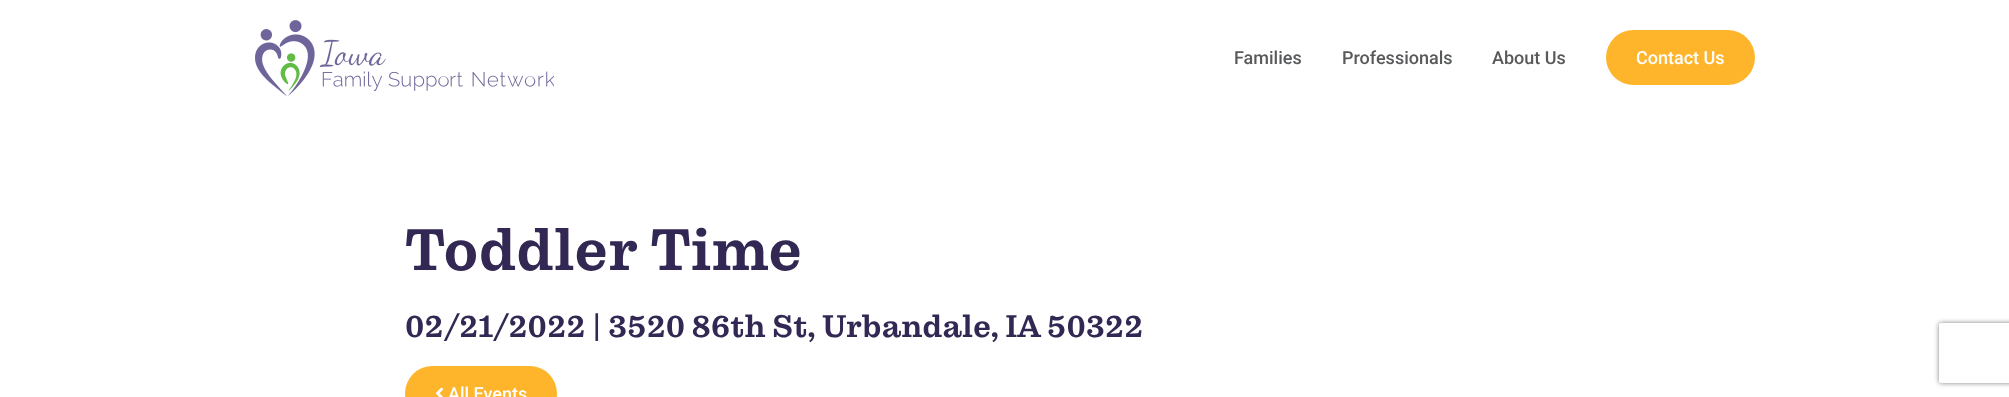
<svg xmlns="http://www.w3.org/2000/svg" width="2009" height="397">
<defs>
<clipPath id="clip1"><path d="M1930 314h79v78h-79zm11 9h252c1 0 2 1 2 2v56c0 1-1 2-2 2h-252c-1 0-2-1-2-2v-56c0-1 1-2 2-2z" clip-rule="evenodd"/></clipPath>
</defs>
<rect width="100%" height="100%" fill="#fff"/>
<image x="255" y="20" width="299" height="76" href="media/1.png"/>
<text x="1234" y="64" style="font-family:Roboto;font-size:18px;font-weight:500;fill:#58595b">Families</text>
<text x="1342" y="64" style="font-family:Roboto;font-size:18px;font-weight:500;fill:#58595b">Professionals</text>
<text x="1492" y="64" style="font-family:Roboto;font-size:18px;font-weight:500;fill:#58595b">About Us</text>
<rect x="1606" y="30" width="149" height="55" rx="27.5" fill="#feb52b"/>
<text x="1636" y="64" style="font-family:Roboto;font-size:18px;font-weight:500;fill:#fff">Contact Us</text>
<text x="405" y="270" style="font-family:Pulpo;font-size:60px;font-weight:500;fill:#332853">Toddler Time</text>
<text x="405" y="337" style="font-family:Pulpo;font-size:32px;font-weight:500;fill:#332853">02/21/2022 | 3520 86th St, Urbandale, IA 50322</text>
<rect x="405" y="366" width="152" height="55" rx="27.5" fill="#feb52b"/>
<image x="435" y="387" width="9" height="10" href="media/2.png"/>
<text x="448" y="400" style="font-family:Roboto;font-size:18px;font-weight:500;fill:#fff">All Events</text>
<g clip-path="url(#clip1)">
<rect x="1939" y="323" width="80" height="60" rx="2" fill="#808080" filter="blur(2.5px)"/>
</g>
</svg>
